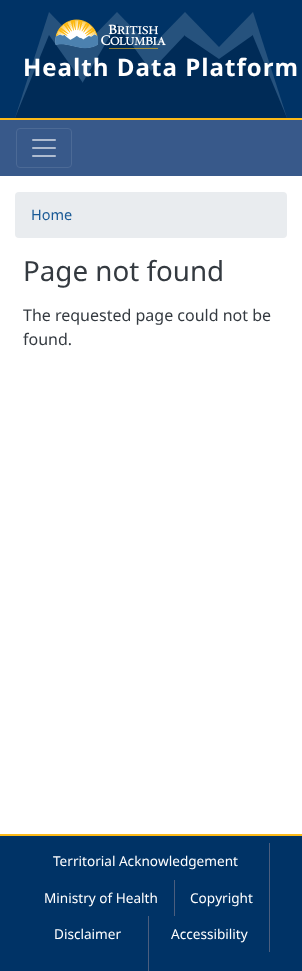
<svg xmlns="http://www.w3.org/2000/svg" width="302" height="971">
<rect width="100%" height="100%" fill="#fff"/>
<rect width="302" height="118" fill="#036"/>
<rect y="118" width="302" height="2" fill="#fcba19"/>
<path d="M15 118h34v-106z" fill="#26527d"/>
<path d="M15 118h34v-83z" fill="#002b57"/>
<path d="M49 118h34v-71l-34-35z" fill="#26527d"/>
<path d="M49 118h34v-35l-34-48z" fill="#002b57"/>
<path d="M83 118h34v-106l-34 35z" fill="#26527d"/>
<path d="M83 118h34v-94l-34 58z" fill="#002b57"/>
<path d="M117 118h34v-71l-34-35z" fill="#26527d"/>
<path d="M117 118h34v-47l-34-47z" fill="#002b57"/>
<path d="M151 118h34v-106l-34 35z" fill="#26527d"/>
<path d="M151 118h34v-83l-34 36z" fill="#002b57"/>
<path d="M185 118h34v-71l-34-35z" fill="#26527d"/>
<path d="M185 118h34v-59l-34-23z" fill="#002b57"/>
<path d="M219 118h34v-106l-34 35z" fill="#26527d"/>
<path d="M219 118h34v-83l-34 24z" fill="#002b57"/>
<path d="M253 118h34l-34-106z" fill="#26527d"/>
<path d="M253 118h34l-34-82z" fill="#002b57"/>
<image x="55" y="19" width="111" height="30" href="media/1.png"/>
<text x="23" y="76" style="font-family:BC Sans;font-size:24px;font-weight:bold;letter-spacing:1px;fill:#fff">Health Data Platform</text>
<rect y="120" width="302" height="56" fill="#38598a"/>
<rect x="16.5" y="128.5" width="55" height="39" rx="3.5" fill="none" stroke="#4c6a96"/>
<image x="32" y="139" width="24" height="18" href="media/2.png"/>
<rect x="15" y="192" width="272" height="46" rx="4" fill="#e9ecef"/>
<text x="31" y="220" style="font-family:BC Sans;font-size:14.5px;fill:#1a5a96">Home</text>
<text x="23" y="281" style="font-family:BC Sans;font-size:27.75px;fill:#343a40">Page not found</text>
<text x="23" y="321" style="font-family:BC Sans;font-size:16px;fill:#343a40">The requested page could not be</text>
<text x="23" y="345" style="font-family:BC Sans;font-size:16px;fill:#343a40">found.</text>
<rect y="836" width="302" height="135" fill="#036"/>
<rect y="834" width="302" height="2" fill="#fcba19"/>
<rect x="269" y="843" width="1" height="109" fill="#4b5e7e"/>
<text x="53" y="866" style="font-family:BC Sans;font-size:13.6px;fill:#fff">Territorial Acknowledgement</text>
<rect x="174" y="880" width="1" height="36" fill="#4b5e7e"/>
<text x="44" y="903" style="font-family:BC Sans;font-size:13.6px;fill:#fff">Ministry of Health</text>
<text x="190" y="903" style="font-family:BC Sans;font-size:13.6px;fill:#fff">Copyright</text>
<rect x="148" y="916" width="1" height="55" fill="#4b5e7e"/>
<text x="54" y="939" style="font-family:BC Sans;font-size:13.6px;fill:#fff">Disclaimer</text>
<text x="171" y="939" style="font-family:BC Sans;font-size:13.6px;fill:#fff">Accessibility</text>
</svg>
